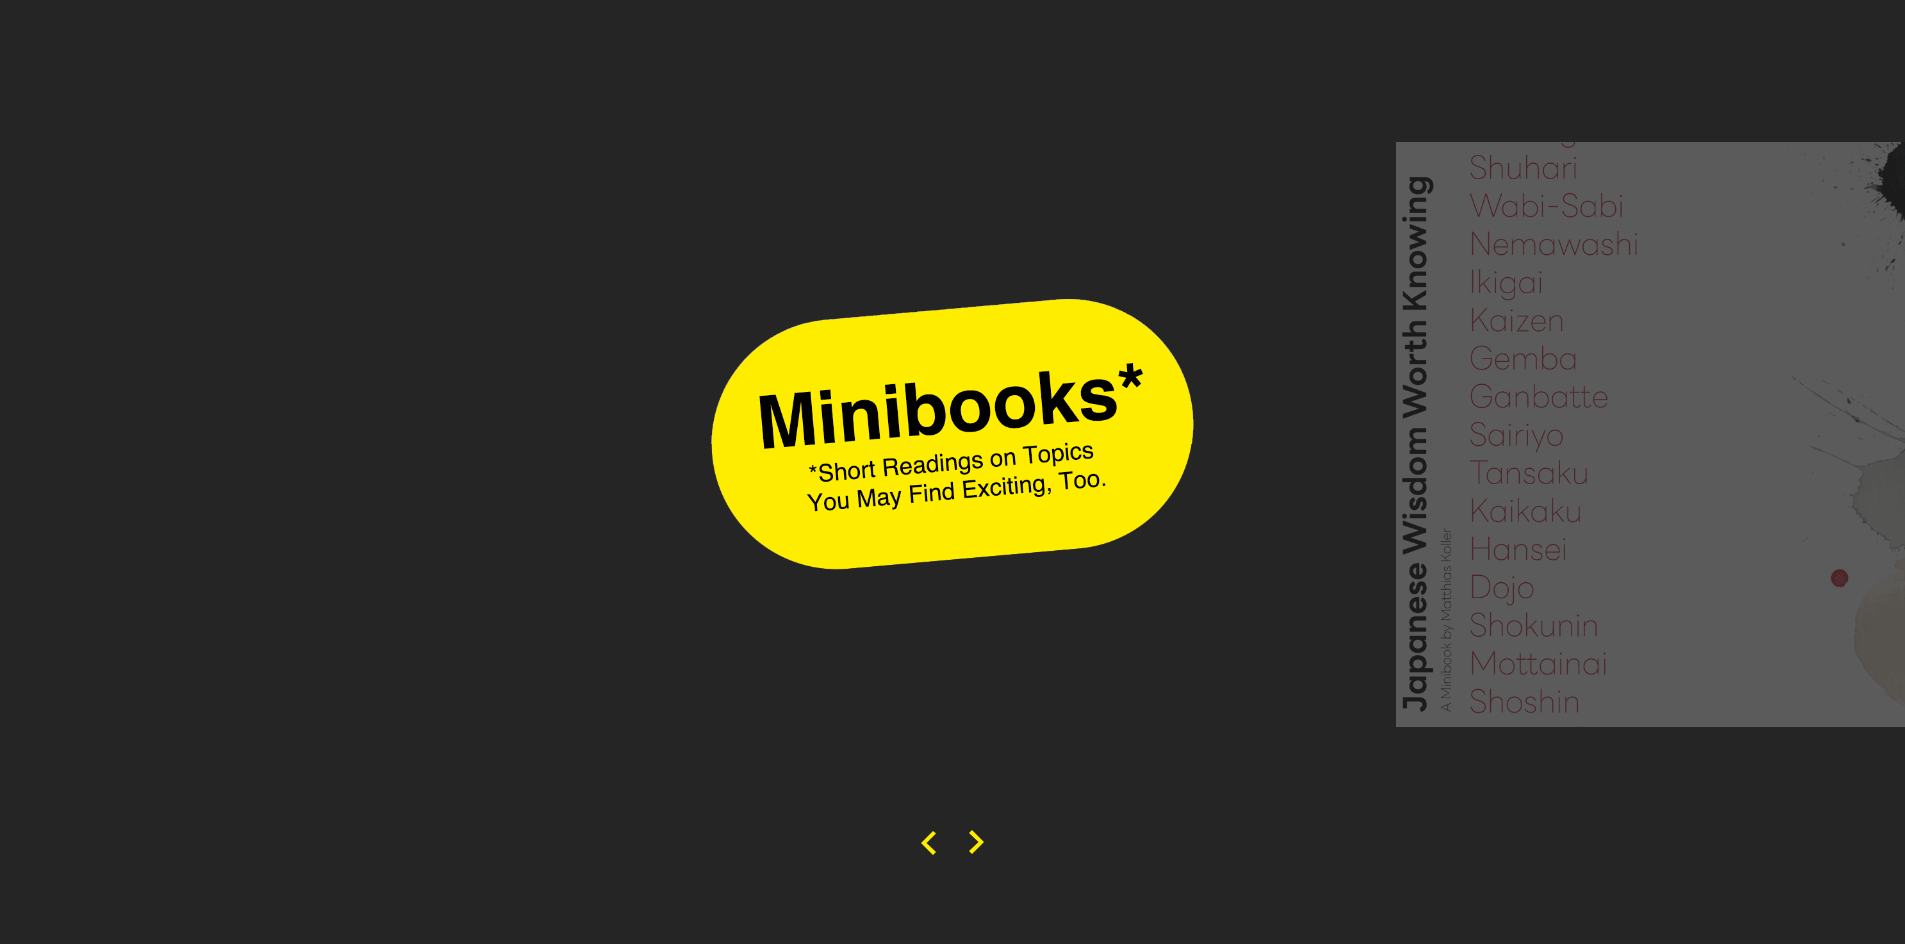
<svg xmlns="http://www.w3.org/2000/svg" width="1905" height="944">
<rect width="100%" height="100%" fill="#252525"/>
<image x="711" y="299" width="483" height="271" href="media/1.png"/>
<image x="1396" y="142" width="509" height="585" href="media/2.png"/>
<path d="M969 851l9.5-9l-9.5-9l3-3l12 12l-12 12zm-33-17.5l-9.5 9.5l9.5 9l-3 3l-12-12l12-12z" fill="#ffed00"/>
</svg>
